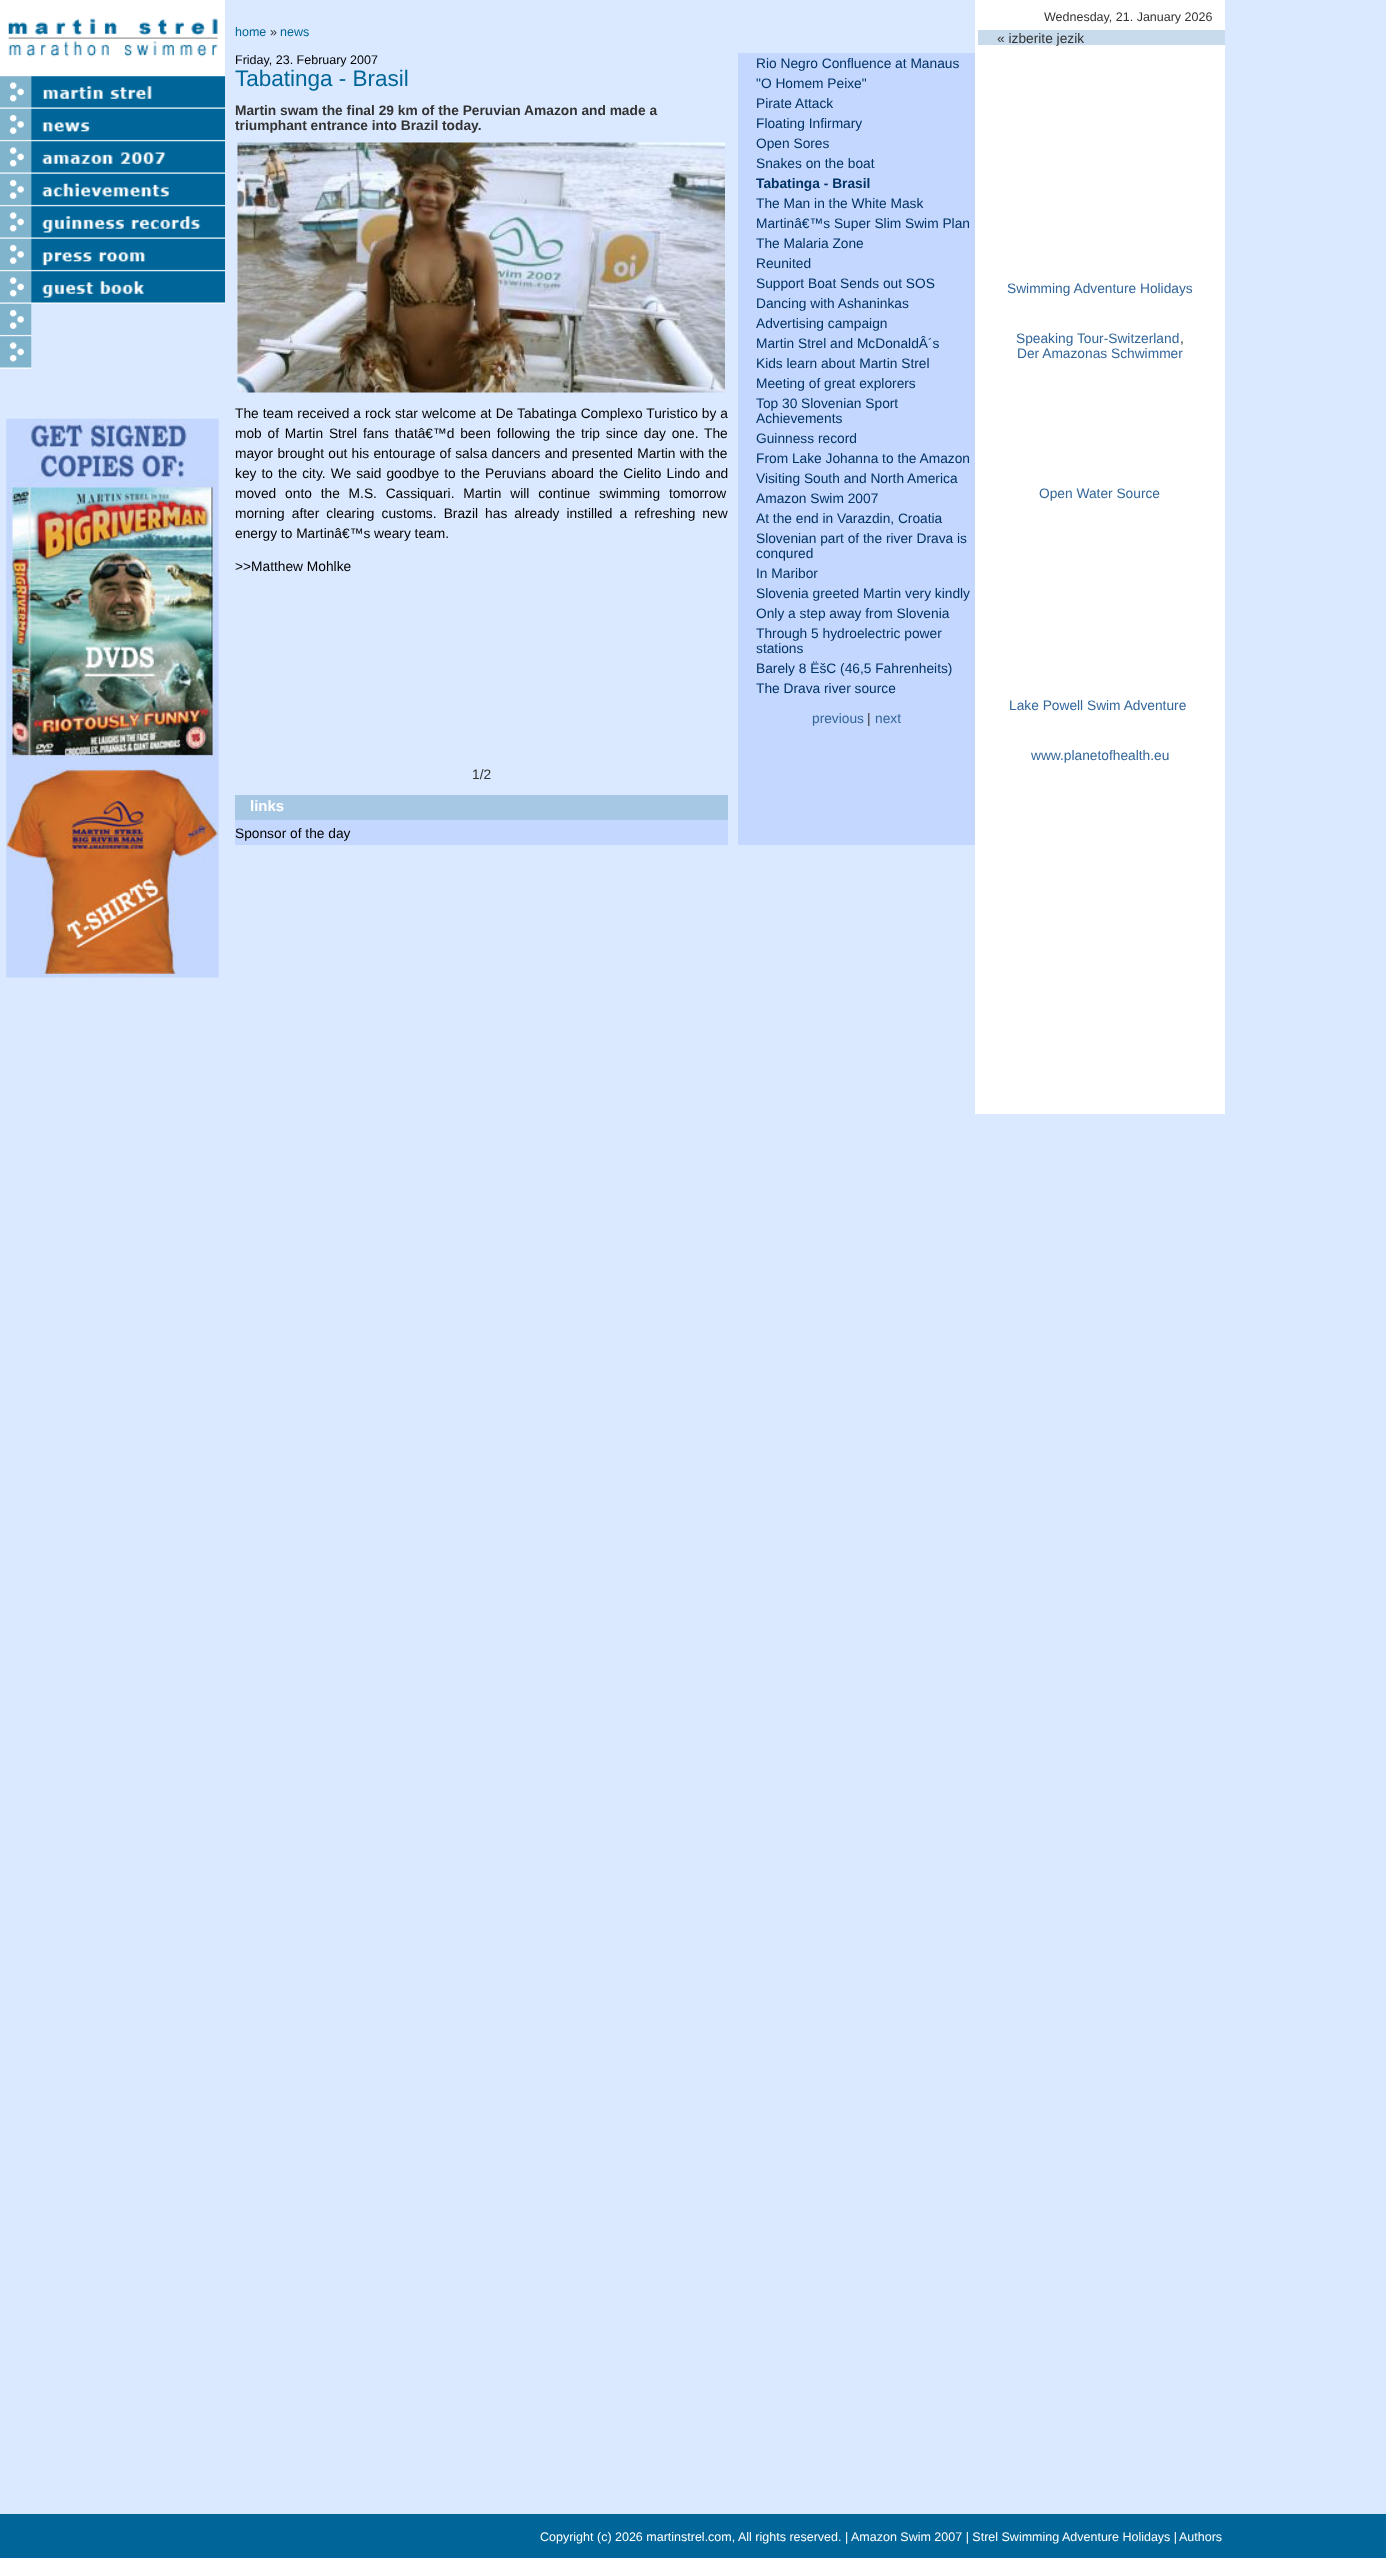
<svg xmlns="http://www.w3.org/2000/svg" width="1386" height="2558">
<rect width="100%" height="100%" fill="#dae9ff"/>
<rect width="225" height="76" fill="#fff"/>
<image x="0" y="18" width="224" height="59" href="media/1.png"/>
<image x="0" y="76" width="32" height="33" href="media/2.png"/>
<image x="31" y="76" width="194" height="33" href="media/3.png"/>
<image x="0" y="108" width="32" height="34" href="media/4.png"/>
<image x="31" y="108" width="194" height="34" href="media/5.png"/>
<image x="0" y="141" width="32" height="33" href="media/6.png"/>
<image x="31" y="141" width="194" height="33" href="media/7.png"/>
<image x="0" y="173" width="32" height="34" href="media/4.png"/>
<image x="31" y="173" width="194" height="34" href="media/8.png"/>
<image x="0" y="206" width="32" height="33" href="media/6.png"/>
<image x="31" y="206" width="194" height="33" href="media/9.png"/>
<image x="0" y="238" width="32" height="34" href="media/4.png"/>
<image x="31" y="238" width="194" height="34" href="media/10.png"/>
<image x="0" y="271" width="32" height="33" href="media/6.png"/>
<image x="31" y="271" width="194" height="33" href="media/11.png"/>
<image x="0" y="303" width="32" height="34" href="media/4.png"/>
<image x="0" y="336" width="32" height="33" href="media/12.png"/>
<image x="6" y="418" width="213" height="560" href="media/13.png"/>
<text x="235" y="36" style="font-family:Liberation Sans;font-size:12.5px;fill:#069">home</text>
<text x="270" y="36" style="font-family:Liberation Sans;font-size:12.5px;fill:#333">»</text>
<text x="280" y="36" style="font-family:Liberation Sans;font-size:12.5px;fill:#069">news</text>
<text x="235" y="64" style="font-family:Liberation Sans;font-size:12.5px;fill:#000">Friday, 23. February 2007</text>
<text x="235" y="86" style="font-family:Liberation Sans;font-size:22.5px;fill:#069">Tabatinga - Brasil</text>
<text x="235" y="115" style="font-family:Liberation Sans;font-size:13.75px;font-weight:bold;fill:#333">Martin swam the final 29 km of the Peruvian Amazon and made a</text>
<text x="235" y="130" style="font-family:Liberation Sans;font-size:13.75px;font-weight:bold;fill:#333">triumphant entrance into Brazil today.</text>
<image x="237" y="142" width="488" height="251" href="media/14.png"/>
<text x="235" y="418" word-spacing="0.2" style="font-family:Liberation Sans;font-size:13.75px;fill:#000">The team received a rock star welcome at De Tabatinga Complexo Turistico by a</text>
<text x="235" y="438" word-spacing="2" style="font-family:Liberation Sans;font-size:13.75px;fill:#000">mob of Martin Strel fans thatâ€™d been following the trip since day one. The</text>
<text x="235" y="458" word-spacing="0.4" style="font-family:Liberation Sans;font-size:13.75px;fill:#000">mayor brought out his entourage of salsa dancers and presented Martin with the</text>
<text x="235" y="478" word-spacing="1.25" style="font-family:Liberation Sans;font-size:13.75px;fill:#000">key to the city. We said goodbye to the Peruvians aboard the Cielito Lindo and</text>
<text x="235" y="498" word-spacing="5" style="font-family:Liberation Sans;font-size:13.75px;fill:#000">moved onto the M.S. Cassiquari. Martin will continue swimming tomorrow</text>
<text x="235" y="518" word-spacing="3.25" style="font-family:Liberation Sans;font-size:13.75px;fill:#000">morning after clearing customs. Brazil has already instilled a refreshing new</text>
<text x="235" y="538" style="font-family:Liberation Sans;font-size:13.75px;fill:#000">energy to Martinâ€™s weary team.</text>
<text x="235" y="571" style="font-family:Liberation Sans;font-size:13.75px;fill:#000">&gt;&gt;Matthew Mohlke</text>
<text x="472" y="779" style="font-family:Liberation Sans;font-size:13.75px;fill:#333">1/2</text>
<rect x="235" y="820" width="493" height="25" fill="#c4d7ff"/>
<rect x="235" y="795" width="493" height="25" fill="#a6c8e5"/>
<text x="250" y="811" style="font-family:Liberation Sans;font-size:15px;font-weight:bold;fill:#fff">links</text>
<text x="235" y="838" style="font-family:Liberation Sans;font-size:13.75px;fill:#000">Sponsor of the day</text>
<rect x="738" y="53" width="237" height="792" fill="#c4d7ff"/>
<text x="756" y="68" style="font-family:Liberation Sans;font-size:13.75px;fill:#036">Rio Negro Confluence at Manaus</text>
<text x="756" y="88" style="font-family:Liberation Sans;font-size:13.75px;fill:#036">"O Homem Peixe"</text>
<text x="756" y="108" style="font-family:Liberation Sans;font-size:13.75px;fill:#036">Pirate Attack</text>
<text x="756" y="128" style="font-family:Liberation Sans;font-size:13.75px;fill:#036">Floating Infirmary</text>
<text x="756" y="148" style="font-family:Liberation Sans;font-size:13.75px;fill:#036">Open Sores</text>
<text x="756" y="168" style="font-family:Liberation Sans;font-size:13.75px;fill:#036">Snakes on the boat</text>
<text x="756" y="188" style="font-family:Liberation Sans;font-size:13.75px;font-weight:bold;fill:#036">Tabatinga - Brasil</text>
<text x="756" y="208" style="font-family:Liberation Sans;font-size:13.75px;fill:#036">The Man in the White Mask</text>
<text x="756" y="228" style="font-family:Liberation Sans;font-size:13.75px;fill:#036">Martinâ€™s Super Slim Swim Plan</text>
<text x="756" y="248" style="font-family:Liberation Sans;font-size:13.75px;fill:#036">The Malaria Zone</text>
<text x="756" y="268" style="font-family:Liberation Sans;font-size:13.75px;fill:#036">Reunited</text>
<text x="756" y="288" style="font-family:Liberation Sans;font-size:13.75px;fill:#036">Support Boat Sends out SOS</text>
<text x="756" y="308" style="font-family:Liberation Sans;font-size:13.75px;fill:#036">Dancing with Ashaninkas</text>
<text x="756" y="328" style="font-family:Liberation Sans;font-size:13.75px;fill:#036">Advertising campaign</text>
<text x="756" y="348" style="font-family:Liberation Sans;font-size:13.75px;fill:#036">Martin Strel and McDonaldÂ´s</text>
<text x="756" y="368" style="font-family:Liberation Sans;font-size:13.75px;fill:#036">Kids learn about Martin Strel</text>
<text x="756" y="388" style="font-family:Liberation Sans;font-size:13.75px;fill:#036">Meeting of great explorers</text>
<text x="756" y="408" style="font-family:Liberation Sans;font-size:13.75px;fill:#036">Top 30 Slovenian Sport</text>
<text x="756" y="423" style="font-family:Liberation Sans;font-size:13.75px;fill:#036">Achievements</text>
<text x="756" y="443" style="font-family:Liberation Sans;font-size:13.75px;fill:#036">Guinness record</text>
<text x="756" y="463" style="font-family:Liberation Sans;font-size:13.75px;fill:#036">From Lake Johanna to the Amazon</text>
<text x="756" y="483" style="font-family:Liberation Sans;font-size:13.75px;fill:#036">Visiting South and North America</text>
<text x="756" y="503" style="font-family:Liberation Sans;font-size:13.75px;fill:#036">Amazon Swim 2007</text>
<text x="756" y="523" style="font-family:Liberation Sans;font-size:13.75px;fill:#036">At the end in Varazdin, Croatia</text>
<text x="756" y="543" style="font-family:Liberation Sans;font-size:13.75px;fill:#036">Slovenian part of the river Drava is</text>
<text x="756" y="558" style="font-family:Liberation Sans;font-size:13.75px;fill:#036">conqured</text>
<text x="756" y="578" style="font-family:Liberation Sans;font-size:13.75px;fill:#036">In Maribor</text>
<text x="756" y="598" style="font-family:Liberation Sans;font-size:13.75px;fill:#036">Slovenia greeted Martin very kindly</text>
<text x="756" y="618" style="font-family:Liberation Sans;font-size:13.75px;fill:#036">Only a step away from Slovenia</text>
<text x="756" y="638" style="font-family:Liberation Sans;font-size:13.75px;fill:#036">Through 5 hydroelectric power</text>
<text x="756" y="653" style="font-family:Liberation Sans;font-size:13.75px;fill:#036">stations</text>
<text x="756" y="673" style="font-family:Liberation Sans;font-size:13.75px;fill:#036">Barely 8 ËšC (46,5 Fahrenheits)</text>
<text x="756" y="693" style="font-family:Liberation Sans;font-size:13.75px;fill:#036">The Drava river source</text>
<text x="812" y="723" style="font-family:Liberation Sans;font-size:13.75px;fill:#369">previous</text>
<text x="867" y="723" style="font-family:Liberation Sans;font-size:13.75px;fill:#333">|</text>
<text x="875" y="723" style="font-family:Liberation Sans;font-size:13.75px;fill:#369">next</text>
<rect x="975" width="250" height="1114" fill="#fff"/>
<text x="1044" y="21" style="font-family:Liberation Sans;font-size:12.5px;fill:#333">Wednesday, 21. January 2026</text>
<rect x="978" y="30" width="247" height="15" fill="#c8dbed"/>
<text x="997" y="43" style="font-family:Liberation Sans;font-size:13.75px;fill:#333">« izberite jezik</text>
<text x="1007" y="293" style="font-family:Liberation Sans;font-size:13.75px;fill:#369">Swimming Adventure Holidays</text>
<text x="1016" y="343" style="font-family:Liberation Sans;font-size:13.75px;fill:#369">Speaking Tour-Switzerland</text>
<text x="1180" y="343" style="font-family:Liberation Sans;font-size:13.75px;fill:#333">,</text>
<text x="1017" y="358" style="font-family:Liberation Sans;font-size:13.75px;fill:#369">Der Amazonas Schwimmer</text>
<text x="1039" y="498" style="font-family:Liberation Sans;font-size:13.75px;fill:#369">Open Water Source</text>
<text x="1009" y="710" style="font-family:Liberation Sans;font-size:13.75px;fill:#369">Lake Powell Swim Adventure</text>
<text x="1031" y="760" style="font-family:Liberation Sans;font-size:13.75px;fill:#369">www.planetofhealth.eu</text>
<rect y="2514" width="1386" height="44" fill="#069"/>
<text x="540" y="2541" style="font-family:Liberation Sans;font-size:12.5px;fill:#fff">Copyright (c) 2026 martinstrel.com, All rights reserved. |</text>
<text x="851" y="2541" style="font-family:Liberation Sans;font-size:12.5px;fill:#fff">Amazon Swim 2007 | Strel Swimming Adventure Holidays |</text>
<text x="1179" y="2541" style="font-family:Liberation Sans;font-size:12.5px;fill:#fff">Authors</text>
</svg>
